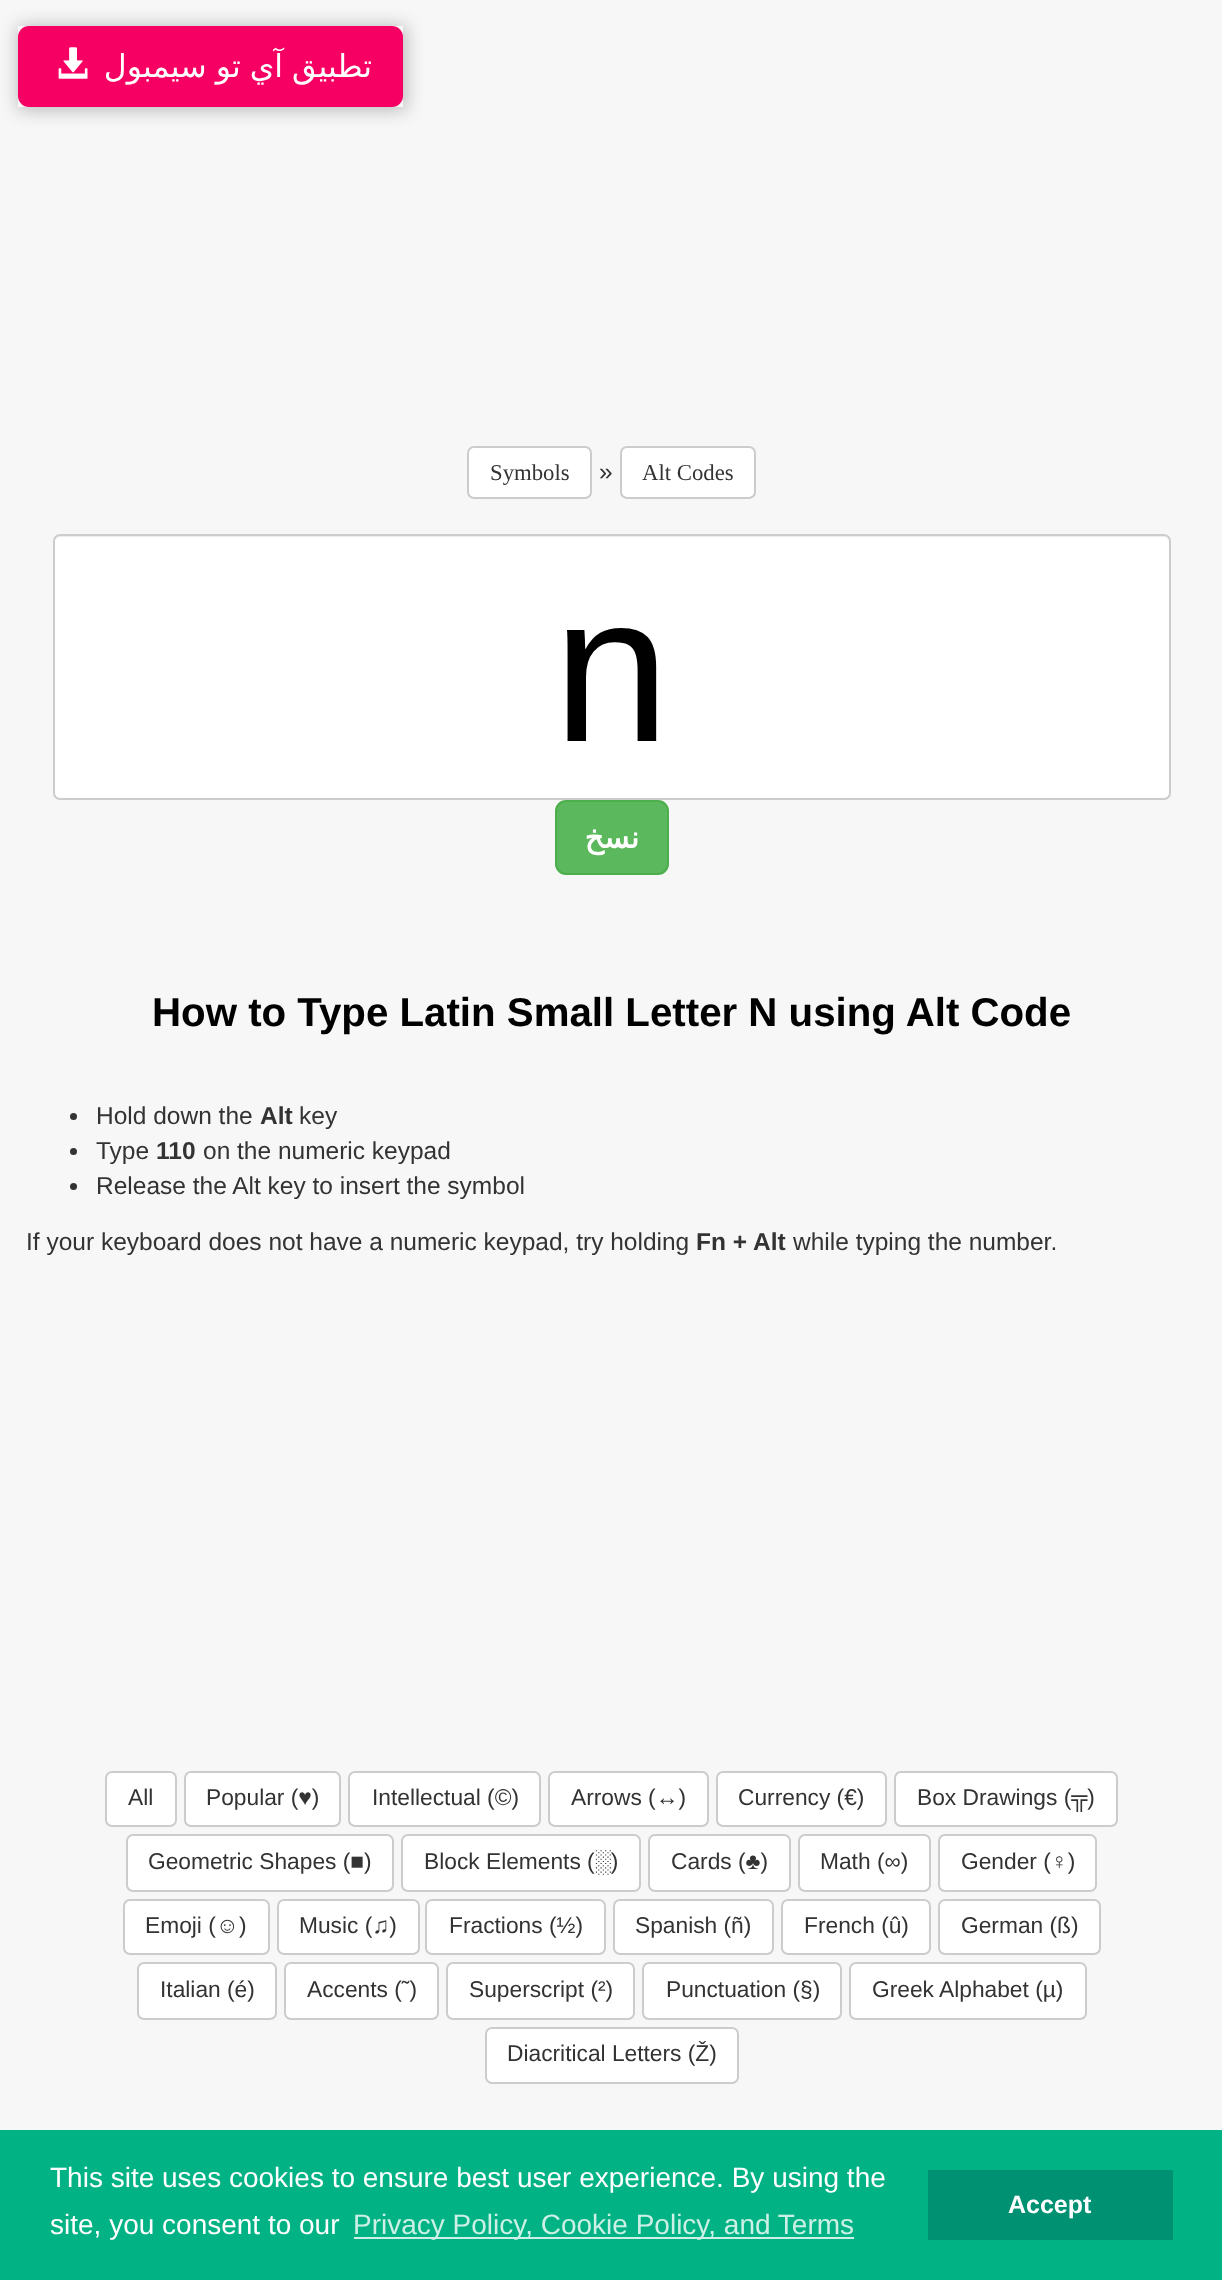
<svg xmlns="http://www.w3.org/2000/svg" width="1222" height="2280">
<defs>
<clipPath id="clip1"><path d="M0 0h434v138h-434zm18 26h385v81h-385z" clip-rule="evenodd"/></clipPath>
</defs>
<rect width="100%" height="100%" fill="#f7f7f7"/>
<g clip-path="url(#clip1)">
<rect x="18" y="26" width="388" height="84" fill="#00000040" filter="blur(9px)"/>
</g>
<rect x="18" y="26" width="385" height="81" rx="11" fill="#f70063"/>
<image x="58" y="47" width="30" height="32" href="media/1.png"/>
<text x="372" y="77" word-spacing="-1" style="font-family:DejaVu Sans;font-size:31.5px;direction:rtl;fill:#fff">تطبيق آي تو سيمبول</text>
<rect x="468" y="447" width="123" height="51" rx="6" fill="#fff" stroke="#ccc" stroke-width="2"/>
<text x="490" y="480" style="font-family:Liberation Serif;font-size:22.75px;fill:#333">Symbols</text>
<text x="599" y="480" style="font-family:Liberation Sans;font-size:24.5px;fill:#333">»</text>
<rect x="621" y="447" width="134" height="51" rx="6" fill="#fff" stroke="#ccc" stroke-width="2"/>
<text x="642" y="480" style="font-family:Liberation Serif;font-size:22.75px;fill:#333">Alt Codes</text>
<rect x="53" y="534" width="1118" height="266" rx="7" fill="#fff"/>
<path d="M60 537h1104c3 0 5 3 5 5c0-3-2-6-5-6h-1105c-3 0-5 3-5 6c0-2 3-5 6-5z" fill="#ececec"/>
<rect x="54" y="535" width="1116" height="264" rx="6" fill="none" stroke="#ccc" stroke-width="2"/>
<text x="553" y="741" style="font-family:Liberation Sans;font-size:210px;fill:#000">n</text>
<rect x="556" y="801" width="112" height="73" rx="10" fill="#5cb85c" stroke="#4cae4c" stroke-width="2"/>
<text x="639" y="848" style="font-family:DejaVu Sans;font-size:30px;font-weight:bold;direction:rtl;fill:#fff">نسخ</text>
<text x="152" y="1026" style="font-family:Liberation Sans;font-size:40.25px;font-weight:bold;fill:#000">How to Type Latin Small Letter N using Alt Code</text>
<circle cx="73.5" cy="1116.5" r="3.5" fill="#333"/>
<text x="96" y="1124" style="font-family:Liberation Sans;font-size:24.5px;fill:#333">Hold down the</text>
<text x="260" y="1124" style="font-family:Liberation Sans;font-size:24.5px;font-weight:bold;fill:#333">Alt</text>
<text x="299" y="1124" style="font-family:Liberation Sans;font-size:24.5px;fill:#333">key</text>
<circle cx="73.5" cy="1151.5" r="3.5" fill="#333"/>
<text x="96" y="1159" style="font-family:Liberation Sans;font-size:24.5px;fill:#333">Type</text>
<text x="156" y="1159" style="font-family:Liberation Sans;font-size:24.5px;font-weight:bold;fill:#333">110</text>
<text x="203" y="1159" style="font-family:Liberation Sans;font-size:24.5px;fill:#333">on the numeric keypad</text>
<circle cx="73.5" cy="1186.5" r="3.5" fill="#333"/>
<text x="96" y="1194" style="font-family:Liberation Sans;font-size:24.5px;fill:#333">Release the Alt key to insert the symbol</text>
<text x="26" y="1250" style="font-family:Liberation Sans;font-size:24.5px;fill:#333">If your keyboard does not have a numeric keypad, try holding</text>
<text x="696" y="1250" style="font-family:Liberation Sans;font-size:24.5px;font-weight:bold;fill:#333">Fn + Alt</text>
<text x="793" y="1250" style="font-family:Liberation Sans;font-size:24.5px;fill:#333">while typing the number.</text>
<rect x="106" y="1772" width="70" height="54" rx="6" fill="#fff" stroke="#ccc" stroke-width="2"/>
<text x="128" y="1805" style="font-family:Liberation Sans;font-size:22.75px;fill:#333">All</text>
<rect x="185" y="1772" width="155" height="54" rx="6" fill="#fff" stroke="#ccc" stroke-width="2"/>
<text x="206" y="1805" style="font-family:Liberation Sans;font-size:22.75px;fill:#333">Popular (♥)</text>
<rect x="349" y="1772" width="191" height="54" rx="6" fill="#fff" stroke="#ccc" stroke-width="2"/>
<text x="372" y="1805" style="font-family:Liberation Sans;font-size:22.75px;fill:#333">Intellectual (©)</text>
<rect x="549" y="1772" width="159" height="54" rx="6" fill="#fff" stroke="#ccc" stroke-width="2"/>
<text x="571" y="1805" style="font-family:Liberation Sans;font-size:22.75px;fill:#333">Arrows (↔)</text>
<rect x="717" y="1772" width="169" height="54" rx="6" fill="#fff" stroke="#ccc" stroke-width="2"/>
<text x="738" y="1805" style="font-family:Liberation Sans;font-size:22.75px;fill:#333">Currency (€)</text>
<rect x="895" y="1772" width="222" height="54" rx="6" fill="#fff" stroke="#ccc" stroke-width="2"/>
<text x="917" y="1805" style="font-family:Liberation Sans;font-size:22.75px;fill:#333">Box Drawings (╦)</text>
<rect x="127" y="1835" width="266" height="56" rx="6" fill="#fff" stroke="#ccc" stroke-width="2"/>
<text x="148" y="1869" style="font-family:Liberation Sans;font-size:22.75px;fill:#333">Geometric Shapes (■)</text>
<rect x="402" y="1835" width="238" height="56" rx="6" fill="#fff" stroke="#ccc" stroke-width="2"/>
<text x="424" y="1869" style="font-family:Liberation Sans;font-size:22.75px;fill:#333">Block Elements (░)</text>
<rect x="649" y="1835" width="141" height="56" rx="6" fill="#fff" stroke="#ccc" stroke-width="2"/>
<text x="671" y="1869" style="font-family:Liberation Sans;font-size:22.75px;fill:#333">Cards (♣)</text>
<rect x="799" y="1835" width="131" height="56" rx="6" fill="#fff" stroke="#ccc" stroke-width="2"/>
<text x="820" y="1869" style="font-family:Liberation Sans;font-size:22.75px;fill:#333">Math (∞)</text>
<rect x="939" y="1835" width="157" height="56" rx="6" fill="#fff" stroke="#ccc" stroke-width="2"/>
<text x="961" y="1869" style="font-family:Liberation Sans;font-size:22.75px;fill:#333">Gender (♀)</text>
<rect x="124" y="1900" width="145" height="54" rx="6" fill="#fff" stroke="#ccc" stroke-width="2"/>
<text x="145" y="1933" style="font-family:Liberation Sans;font-size:22.75px;fill:#333">Emoji (☺)</text>
<rect x="278" y="1900" width="141" height="54" rx="6" fill="#fff" stroke="#ccc" stroke-width="2"/>
<text x="299" y="1933" style="font-family:Liberation Sans;font-size:22.75px;fill:#333">Music (♫)</text>
<rect x="426" y="1900" width="179" height="54" rx="6" fill="#fff" stroke="#ccc" stroke-width="2"/>
<text x="449" y="1933" style="font-family:Liberation Sans;font-size:22.75px;fill:#333">Fractions (½)</text>
<rect x="614" y="1900" width="159" height="54" rx="6" fill="#fff" stroke="#ccc" stroke-width="2"/>
<text x="635" y="1933" style="font-family:Liberation Sans;font-size:22.75px;fill:#333">Spanish (ñ)</text>
<rect x="782" y="1900" width="148" height="54" rx="6" fill="#fff" stroke="#ccc" stroke-width="2"/>
<text x="804" y="1933" style="font-family:Liberation Sans;font-size:22.75px;fill:#333">French (û)</text>
<rect x="939" y="1900" width="161" height="54" rx="6" fill="#fff" stroke="#ccc" stroke-width="2"/>
<text x="961" y="1933" style="font-family:Liberation Sans;font-size:22.75px;fill:#333">German (ß)</text>
<rect x="138" y="1963" width="138" height="56" rx="6" fill="#fff" stroke="#ccc" stroke-width="2"/>
<text x="160" y="1997" style="font-family:Liberation Sans;font-size:22.75px;fill:#333">Italian (é)</text>
<rect x="285" y="1963" width="153" height="56" rx="6" fill="#fff" stroke="#ccc" stroke-width="2"/>
<text x="307" y="1997" style="font-family:Liberation Sans;font-size:22.75px;fill:#333">Accents (˜)</text>
<rect x="447" y="1963" width="187" height="56" rx="6" fill="#fff" stroke="#ccc" stroke-width="2"/>
<text x="469" y="1997" style="font-family:Liberation Sans;font-size:22.75px;fill:#333">Superscript (²)</text>
<rect x="643" y="1963" width="198" height="56" rx="6" fill="#fff" stroke="#ccc" stroke-width="2"/>
<text x="666" y="1997" style="font-family:Liberation Sans;font-size:22.75px;fill:#333">Punctuation (§)</text>
<rect x="850" y="1963" width="236" height="56" rx="6" fill="#fff" stroke="#ccc" stroke-width="2"/>
<text x="872" y="1997" style="font-family:Liberation Sans;font-size:22.75px;fill:#333">Greek Alphabet (µ)</text>
<rect x="486" y="2028" width="252" height="55" rx="6" fill="#fff" stroke="#ccc" stroke-width="2"/>
<text x="507" y="2061" style="font-family:Liberation Sans;font-size:22.75px;fill:#333">Diacritical Letters (Ž)</text>
<rect y="2130" width="1222" height="150" fill="#00b284"/>
<text x="50" y="2187" style="font-family:Liberation Sans;font-size:28px;fill:#fff">This site uses cookies to ensure best user experience. By using the</text>
<text x="50" y="2234" style="font-family:Liberation Sans;font-size:28px;fill:#fff">site, you consent to our</text>
<rect x="354" y="2237" width="500" height="2" fill="#ccf0e6"/>
<text x="353" y="2234" style="font-family:Liberation Sans;font-size:28px;fill:#ccf0e6">Privacy Policy, Cookie Policy, and Terms</text>
<rect x="928" y="2170" width="245" height="70" fill="#009173"/>
<text x="1008" y="2213" style="font-family:Liberation Sans;font-size:25px;font-weight:bold;fill:#fff">Accept</text>
</svg>
